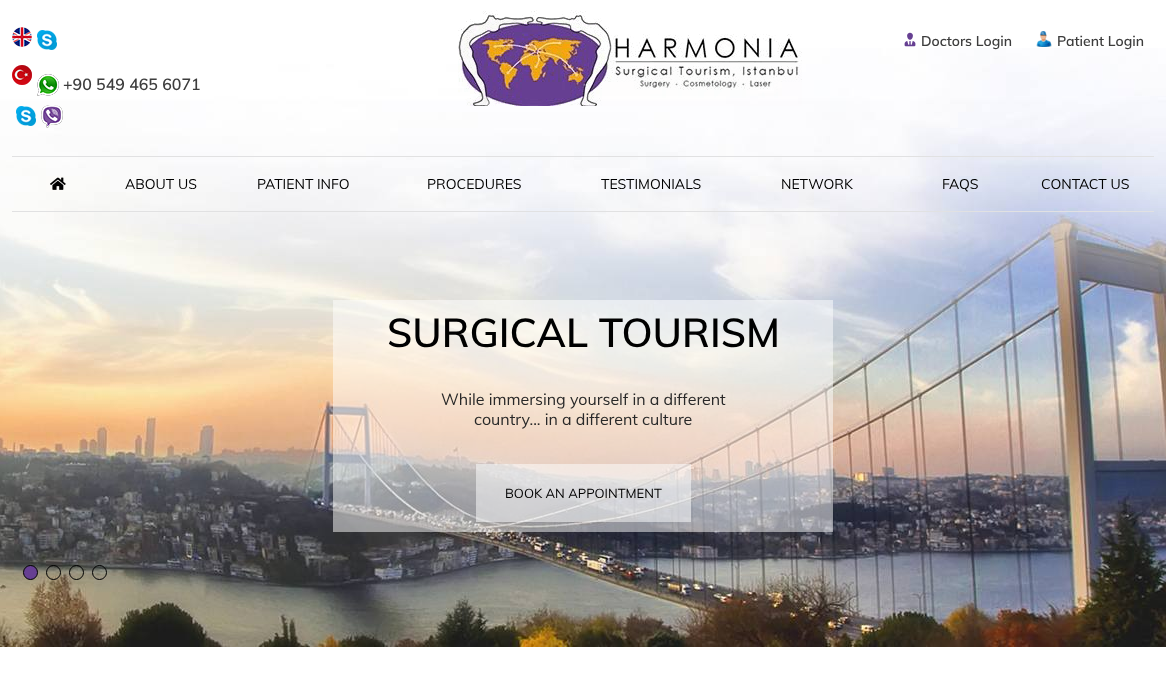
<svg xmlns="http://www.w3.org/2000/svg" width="1166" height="682">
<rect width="100%" height="100%" fill="#fff"/>
<image x="0" y="48" width="1166" height="599" href="media/10.png"/>
<image x="458" y="10" width="344" height="96" href="media/1.png"/>
<image x="904" y="32" width="12" height="15" href="media/2.png"/>
<text x="921" y="46" style="font-family:Muli;font-size:14px;font-weight:600;fill:#3d3d3d">Doctors Login</text>
<image x="1036" y="31" width="16" height="16" href="media/3.png"/>
<text x="1057" y="46" style="font-family:Muli;font-size:14px;font-weight:600;fill:#3d3d3d">Patient Login</text>
<image x="12" y="27" width="20" height="20" href="media/4.png"/>
<image x="37" y="30" width="20" height="20" href="media/5.png"/>
<image x="12" y="65" width="20" height="20" href="media/6.png"/>
<image x="37" y="74" width="22" height="22" href="media/7.png"/>
<text x="63" y="90" style="font-family:Muli;font-size:16px;font-weight:600;fill:#3d3d3d">+90 549 465 6071</text>
<image x="16" y="105" width="47" height="23" href="media/8.png"/>
<rect x="12" y="156" width="1142" height="1" fill="#e1e1e2"/>
<rect x="12" y="211" width="1142" height="1" fill="#e1e1e2"/>
<image x="50" y="177" width="16" height="13" href="media/9.png"/>
<text x="125" y="189" style="font-family:Muli;font-size:14px;fill:#000">ABOUT US</text>
<text x="257" y="189" style="font-family:Muli;font-size:14px;fill:#000">PATIENT INFO</text>
<text x="427" y="189" style="font-family:Muli;font-size:14px;fill:#000">PROCEDURES</text>
<text x="601" y="189" style="font-family:Muli;font-size:14px;fill:#000">TESTIMONIALS</text>
<text x="781" y="189" style="font-family:Muli;font-size:14px;fill:#000">NETWORK</text>
<text x="942" y="189" style="font-family:Muli;font-size:14px;fill:#000">FAQS</text>
<text x="1041" y="189" style="font-family:Muli;font-size:14px;fill:#000">CONTACT US</text>
<rect x="333" y="300" width="500" height="232" fill="#ffffff80"/>
<text x="387" y="347" style="font-family:Muli;font-size:40px;font-weight:600;fill:#000">SURGICAL TOURISM</text>
<text x="441" y="405" style="font-family:Muli;font-size:16px;fill:#292929">While immersing yourself in a different</text>
<text x="474" y="425" style="font-family:Muli;font-size:16px;fill:#292929">country... in a different culture</text>
<rect x="476" y="464" width="215" height="58" fill="#ffffff80"/>
<text x="505" y="498" style="font-family:Muli;font-size:13px;fill:#000">BOOK AN APPOINTMENT</text>
<circle cx="30.5" cy="572.5" r="7" fill="#663f92" stroke="#000"/>
<circle cx="53.5" cy="572.5" r="7" fill="none" stroke="#000"/>
<circle cx="76.5" cy="572.5" r="7" fill="none" stroke="#000"/>
<circle cx="99.5" cy="572.5" r="7" fill="none" stroke="#000"/>
</svg>
